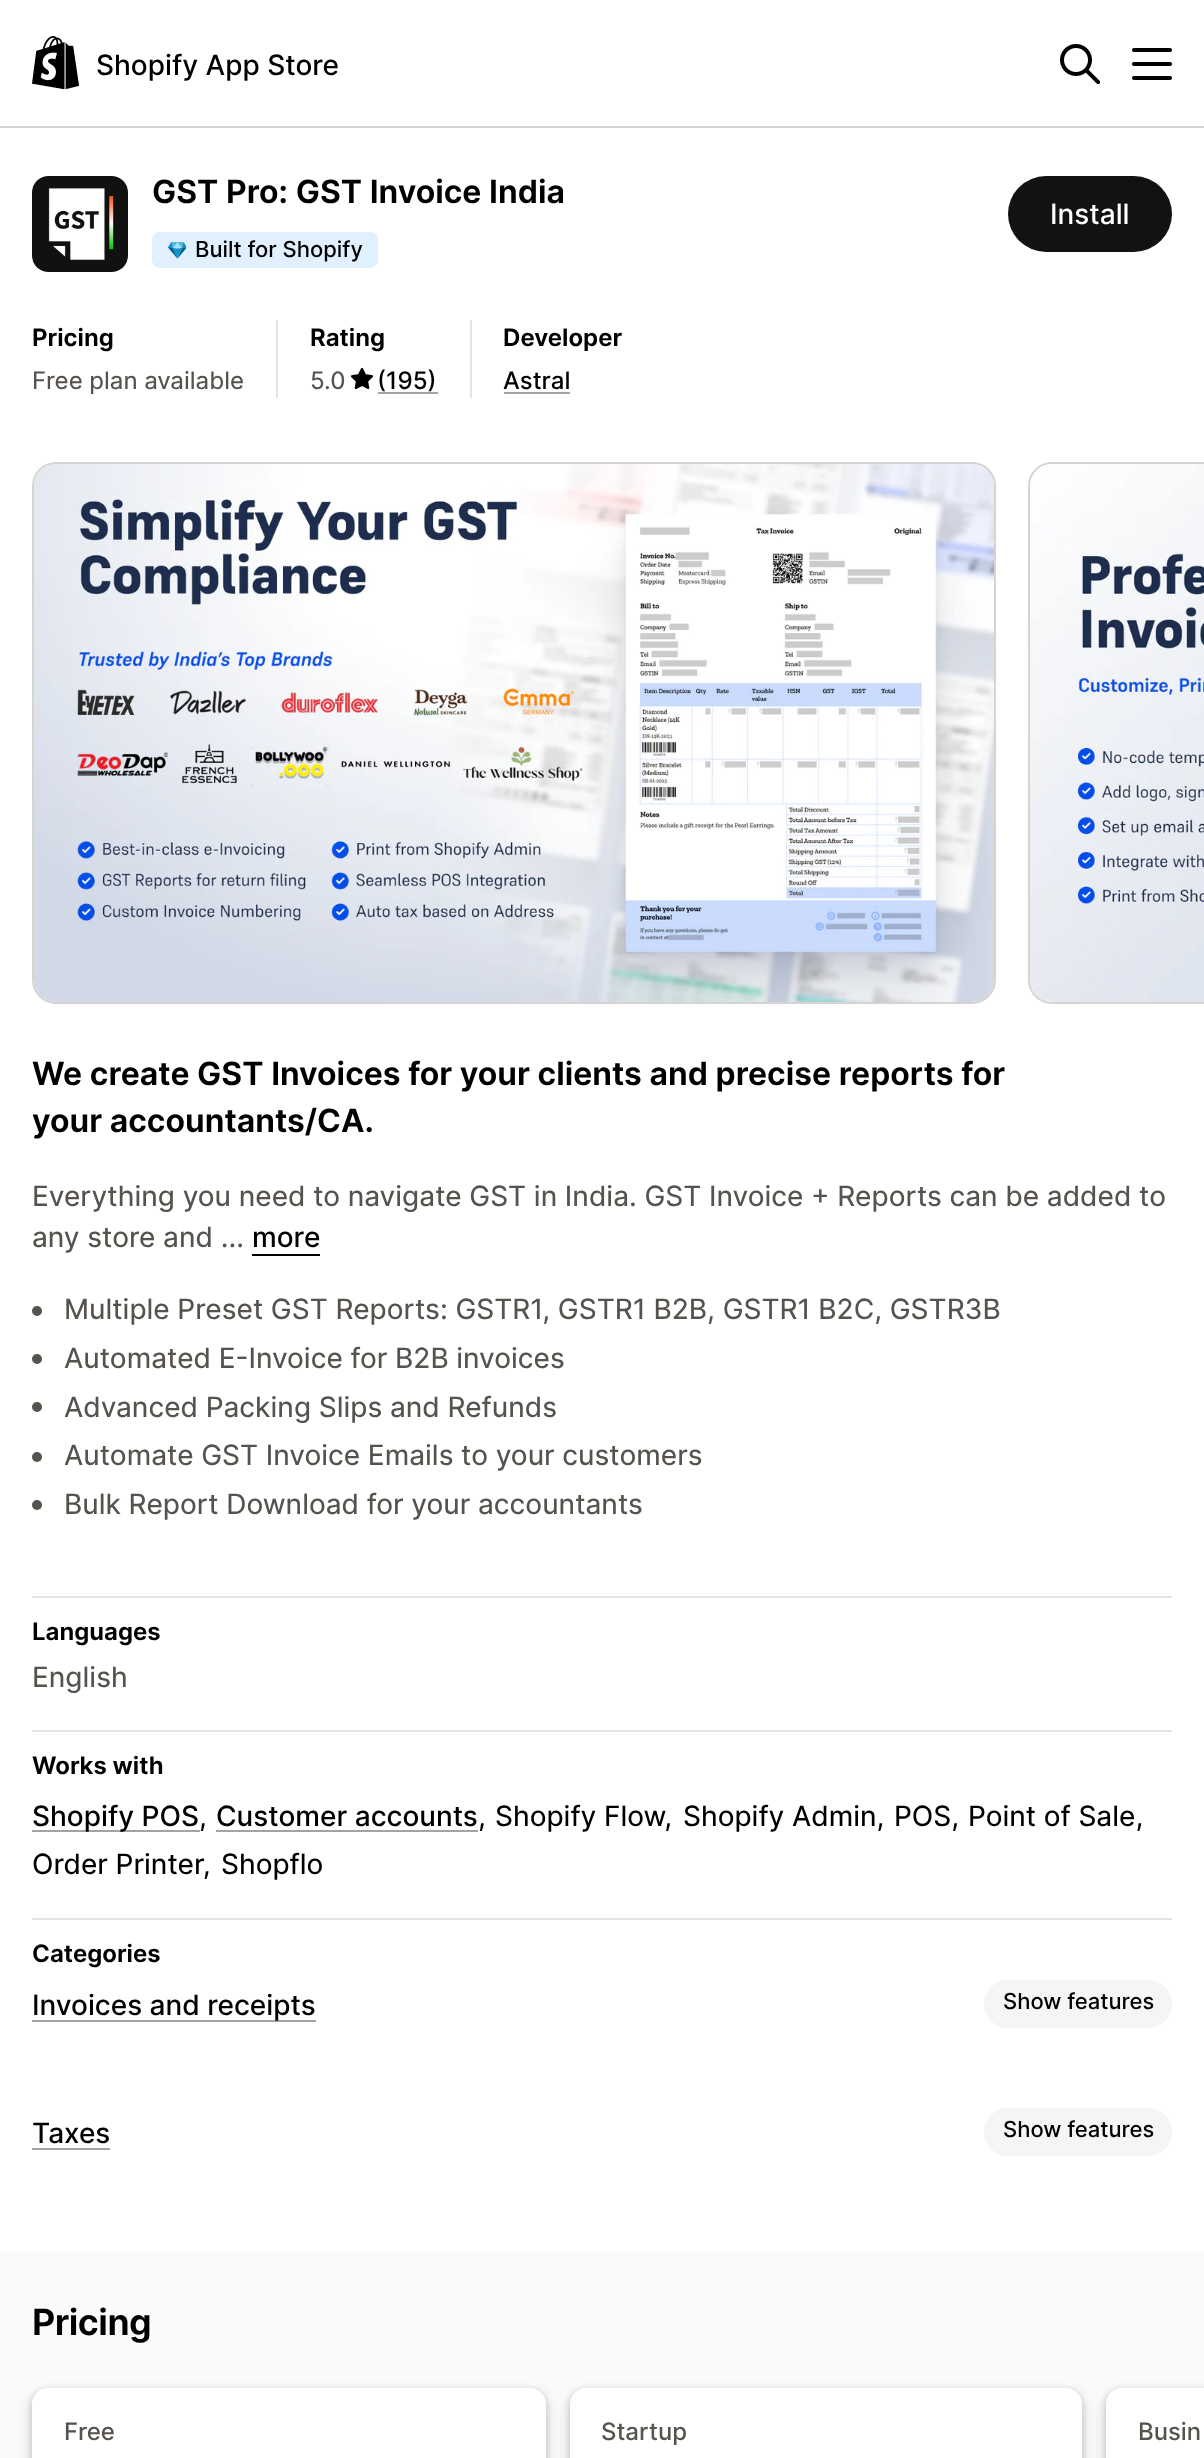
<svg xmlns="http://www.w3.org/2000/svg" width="1204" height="2458">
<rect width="100%" height="100%" fill="#fff"/>
<rect y="126" width="1204" height="2" fill="#d6d3d1"/>
<image x="32" y="36" width="48" height="54" href="media/1.png"/>
<text x="96" y="75" style="font-family:Inter;font-size:28px;font-weight:500;fill:#000">Shopify App Store</text>
<image x="1060" y="44" width="40" height="40" href="media/2.png"/>
<image x="1132" y="48" width="40" height="32" href="media/3.png"/>
<image x="32" y="176" width="96" height="96" href="media/4.png"/>
<rect x="33" y="177" width="94" height="94" rx="15" fill="none" stroke="#0000001a" stroke-width="2"/>
<text x="152" y="203" style="font-family:Inter;font-size:32px;font-weight:600;fill:#000">GST Pro: GST Invoice India</text>
<rect x="152" y="232" width="226" height="36" rx="8" fill="#e0f0ff"/>
<image x="168" y="242" width="18" height="17" href="media/5.png"/>
<text x="195" y="257" style="font-family:Inter;font-size:22px;font-weight:500;fill:#000">Built for Shopify</text>
<rect x="276" y="320" width="2" height="78" fill="#e7e5e4"/>
<text x="32" y="346" style="font-family:Inter;font-size:24px;font-weight:600;fill:#000">Pricing</text>
<text x="32" y="389" style="font-family:Inter;font-size:24px;fill:#56524e">Free plan available</text>
<rect x="470" y="320" width="2" height="78" fill="#e7e5e4"/>
<text x="310" y="346" style="font-family:Inter;font-size:24px;font-weight:600;fill:#000">Rating</text>
<text x="310" y="389" style="font-family:Inter;font-size:24px;fill:#56524e">5.0</text>
<image x="350" y="367" width="24" height="23" href="media/6.png"/>
<text x="377" y="389" style="font-family:Inter;font-size:24px;font-weight:500;fill:#000">(195)</text>
<rect x="378" y="392" width="60" height="2" fill="#a8a29f"/>
<text x="503" y="346" style="font-family:Inter;font-size:24px;font-weight:600;fill:#000">Developer</text>
<text x="503" y="389" style="font-family:Inter;font-size:24px;font-weight:500;fill:#000">Astral</text>
<rect x="504" y="392" width="66" height="2" fill="#a8a29f"/>
<rect x="1008" y="176" width="164" height="76" rx="38" fill="#131111"/>
<text x="1050" y="224" style="font-family:Inter;font-size:28px;font-weight:500;fill:#fff">Install</text>
<rect x="33" y="463" width="962" height="540" rx="23" fill="none" stroke="#d6d3d1" stroke-width="2"/>
<image x="34" y="464" width="960" height="538" href="media/7.png"/>
<rect x="1029" y="463" width="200" height="540" rx="23" fill="none" stroke="#d6d3d1" stroke-width="2"/>
<image x="1030" y="464" width="174" height="538" href="media/8.png"/>
<text x="32" y="1085" style="font-family:Inter;font-size:32px;font-weight:600;fill:#000">We create GST Invoices for your clients and precise reports for</text>
<text x="32" y="1132" style="font-family:Inter;font-size:32px;font-weight:600;fill:#000">your accountants/CA.</text>
<text x="32" y="1206" style="font-family:Inter;font-size:28px;fill:#56524e">Everything you need to navigate GST in India. GST Invoice + Reports can be added to</text>
<text x="32" y="1247" style="font-family:Inter;font-size:28px;fill:#56524e">any store and ...</text>
<text x="252" y="1247" style="font-family:Inter;font-size:28px;font-weight:500;fill:#000">more</text>
<rect x="252" y="1254" width="68" height="2" fill="#000"/>
<circle cx="37" cy="1311" r="5" fill="#56524e"/>
<text x="64" y="1319" style="font-family:Inter;font-size:28px;fill:#56524e">Multiple Preset GST Reports: GSTR1, GSTR1 B2B, GSTR1 B2C, GSTR3B</text>
<circle cx="37" cy="1359" r="5" fill="#56524e"/>
<text x="64" y="1368" style="font-family:Inter;font-size:28px;fill:#56524e">Automated E-Invoice for B2B invoices</text>
<circle cx="37" cy="1407" r="5" fill="#56524e"/>
<text x="64" y="1417" style="font-family:Inter;font-size:28px;fill:#56524e">Advanced Packing Slips and Refunds</text>
<circle cx="37" cy="1457" r="5" fill="#56524e"/>
<text x="64" y="1465" style="font-family:Inter;font-size:28px;fill:#56524e">Automate GST Invoice Emails to your customers</text>
<circle cx="37" cy="1505" r="5" fill="#56524e"/>
<text x="64" y="1514" style="font-family:Inter;font-size:28px;fill:#56524e">Bulk Report Download for your accountants</text>
<rect x="32" y="1596" width="1140" height="2" fill="#e7e5e4"/>
<text x="32" y="1640" style="font-family:Inter;font-size:24px;font-weight:600;fill:#000">Languages</text>
<text x="32" y="1687" style="font-family:Inter;font-size:28px;fill:#56524e">English</text>
<rect x="32" y="1730" width="1140" height="2" fill="#e7e5e4"/>
<text x="32" y="1774" style="font-family:Inter;font-size:24px;font-weight:600;fill:#000">Works with</text>
<rect x="32" y="1830" width="168" height="2" fill="#a8a29f"/>
<text x="32" y="1826" style="font-family:Inter;font-size:28px;font-weight:500;fill:#000">Shopify POS</text>
<text x="199" y="1826" style="font-family:Inter;font-size:28px;fill:#000">,</text>
<text x="216" y="1826" style="font-family:Inter;font-size:28px;font-weight:500;fill:#000">Customer accounts</text>
<rect x="216" y="1830" width="262" height="2" fill="#a8a29f"/>
<text x="478" y="1826" style="font-family:Inter;font-size:28px;fill:#000">,</text>
<text x="495" y="1826" style="font-family:Inter;font-size:28px;fill:#000">Shopify Flow,</text>
<text x="683" y="1826" style="font-family:Inter;font-size:28px;fill:#000">Shopify Admin,</text>
<text x="894" y="1826" style="font-family:Inter;font-size:28px;fill:#000">POS,</text>
<text x="968" y="1826" style="font-family:Inter;font-size:28px;fill:#000">Point of Sale,</text>
<text x="32" y="1874" style="font-family:Inter;font-size:28px;fill:#000">Order Printer,</text>
<text x="221" y="1874" style="font-family:Inter;font-size:28px;fill:#000">Shopflo</text>
<rect x="32" y="1918" width="1140" height="2" fill="#e7e5e4"/>
<text x="32" y="1962" style="font-family:Inter;font-size:24px;font-weight:600;fill:#000">Categories</text>
<rect x="32" y="2020" width="284" height="2" fill="#a8a29f"/>
<text x="32" y="2015" style="font-family:Inter;font-size:28px;font-weight:500;fill:#000">Invoices and receipts</text>
<rect x="984" y="1980" width="188" height="48" rx="24" fill="#f5f5f4"/>
<text x="1003" y="2009" style="font-family:Inter;font-size:22px;font-weight:500;fill:#000">Show features</text>
<text x="32" y="2143" style="font-family:Inter;font-size:28px;font-weight:500;fill:#000">Taxes</text>
<rect x="32" y="2148" width="78" height="2" fill="#a8a29f"/>
<rect x="984" y="2108" width="188" height="48" rx="24" fill="#f5f5f4"/>
<text x="1003" y="2137" style="font-family:Inter;font-size:22px;font-weight:500;fill:#000">Show features</text>
<rect y="2252" width="1204" height="206" fill="#fafaf9"/>
<text x="32" y="2335" style="font-family:Inter;font-size:36px;font-weight:600;letter-spacing:-0.5px;fill:#000">Pricing</text>
<rect x="30" y="2388" width="518" height="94" rx="18" fill="#00000012" filter="blur(2px)"/>
<rect x="30" y="2390" width="518" height="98" rx="18" fill="#00000012" filter="blur(4px)"/>
<rect x="30" y="2394" width="518" height="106" rx="18" fill="#00000012" filter="blur(8px)"/>
<rect x="32" y="2388" width="514" height="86" rx="16" fill="#fff"/>
<text x="64" y="2440" style="font-family:Inter;font-size:24px;font-weight:500;fill:#56524e">Free</text>
<rect x="568" y="2388" width="516" height="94" rx="18" fill="#00000012" filter="blur(2px)"/>
<rect x="568" y="2390" width="516" height="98" rx="18" fill="#00000012" filter="blur(4px)"/>
<rect x="568" y="2394" width="516" height="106" rx="18" fill="#00000012" filter="blur(8px)"/>
<rect x="570" y="2388" width="512" height="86" rx="16" fill="#fff"/>
<text x="601" y="2440" style="font-family:Inter;font-size:24px;font-weight:500;fill:#56524e">Startup</text>
<rect x="1104" y="2388" width="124" height="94" rx="18" fill="#00000012" filter="blur(2px)"/>
<rect x="1104" y="2390" width="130" height="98" rx="18" fill="#00000012" filter="blur(4px)"/>
<rect x="1104" y="2394" width="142" height="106" rx="18" fill="#00000012" filter="blur(8px)"/>
<path d="M1122 2388h82v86h-82c-9 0-16-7-16-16v-54c0-9 7-16 16-16z" fill="#fff"/>
<text x="1138" y="2440" style="font-family:Inter;font-size:24px;font-weight:500;fill:#56524e">Busin</text>
</svg>
